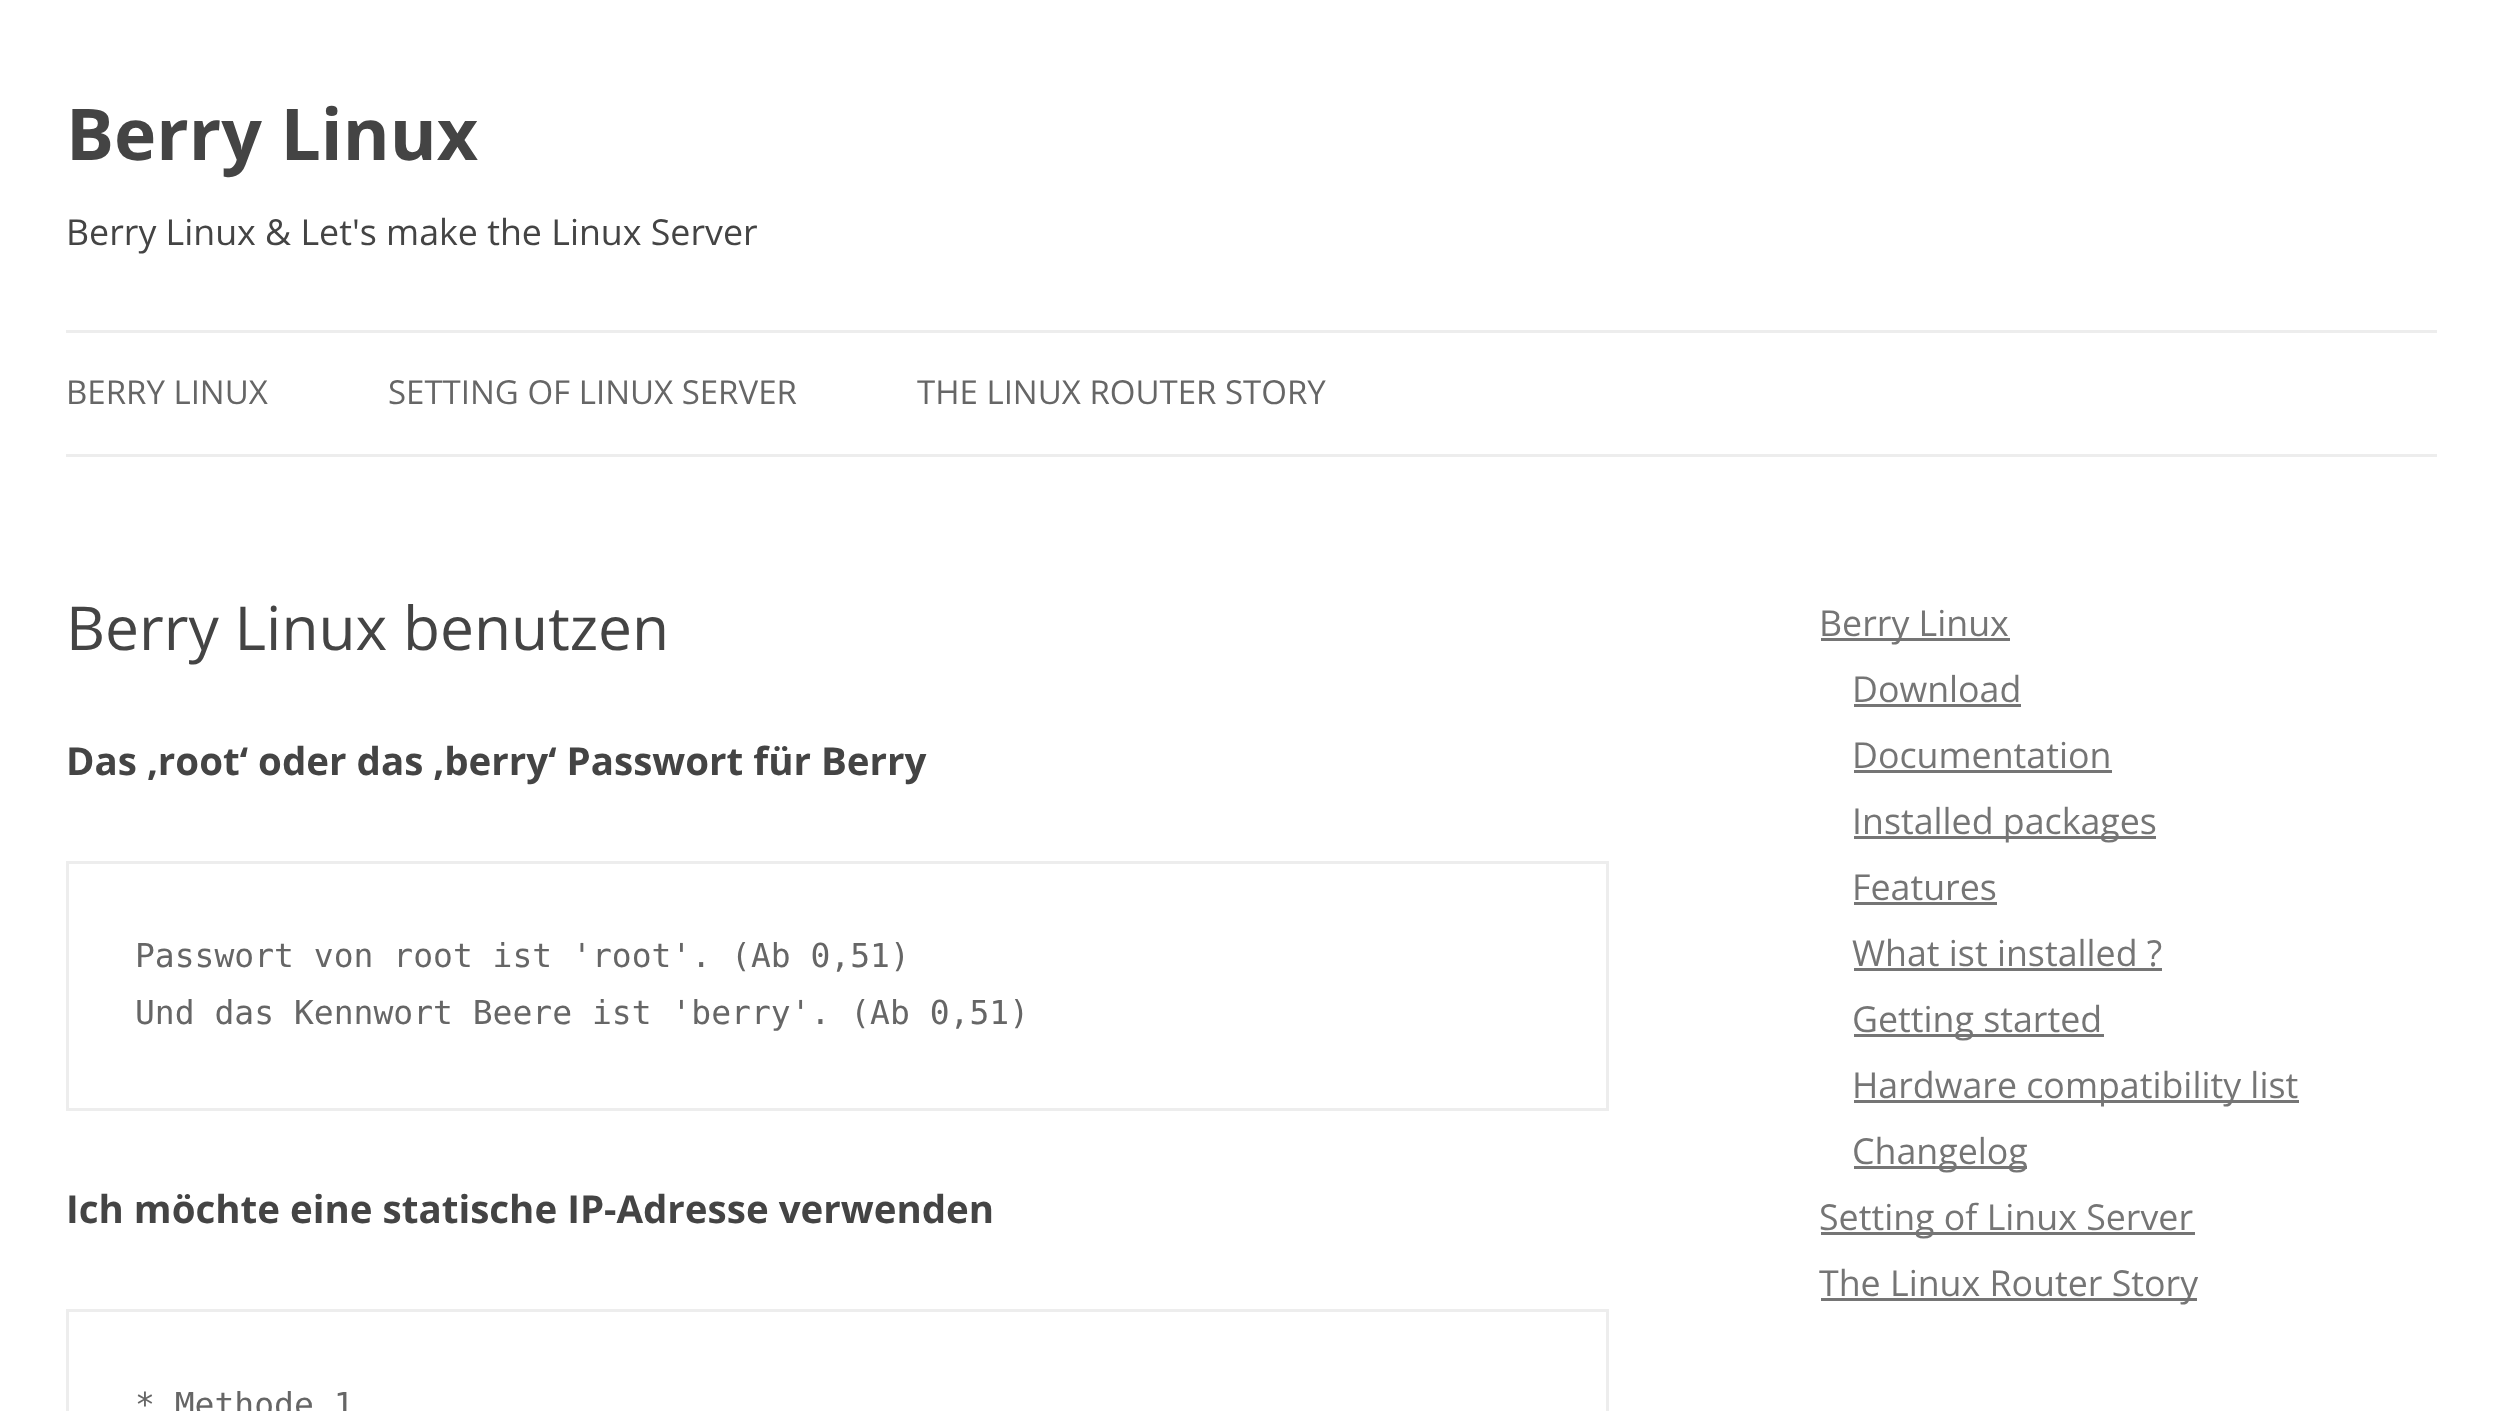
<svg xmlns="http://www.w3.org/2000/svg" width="2502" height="1411">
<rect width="100%" height="100%" fill="#fff"/>
<text x="66" y="160" style="font-family:Open Sans;font-size:71.5px;font-weight:bold;fill:#444">Berry Linux</text>
<text x="66" y="245" style="font-family:Open Sans;font-size:35.75px;fill:#444">Berry Linux &amp; Let's make the Linux Server</text>
<rect x="66" y="330" width="2371" height="3" fill="#ededed"/>
<rect x="66" y="454" width="2371" height="3" fill="#ededed"/>
<text x="66" y="404" style="font-family:Open Sans;font-size:33px;fill:#666">BERRY LINUX</text>
<text x="388" y="404" style="font-family:Open Sans;font-size:33px;fill:#666">SETTING OF LINUX SERVER</text>
<text x="917" y="404" style="font-family:Open Sans;font-size:33px;fill:#666">THE LINUX ROUTER STORY</text>
<text x="66" y="650" style="font-family:Open Sans;font-size:60.5px;fill:#444">Berry Linux benutzen</text>
<text x="66" y="775" style="font-family:Open Sans;font-size:38.5px;font-weight:bold;fill:#444">Das ‚root‘ oder das ‚berry‘ Passwort für Berry</text>
<rect x="67.5" y="862.5" width="1540" height="247" fill="none" stroke="#ededed" stroke-width="3"/>
<text x="135" y="967" style="font-family:DejaVu Sans Mono;font-size:33px;fill:#666">Passwort von root ist 'root'. (Ab 0,51)</text>
<text x="135" y="1024" style="font-family:DejaVu Sans Mono;font-size:33px;fill:#666">Und das Kennwort Beere ist 'berry'. (Ab 0,51)</text>
<text x="66" y="1223" style="font-family:Open Sans;font-size:38.5px;font-weight:bold;fill:#444">Ich möchte eine statische IP-Adresse verwenden</text>
<rect x="67.5" y="1310.5" width="1540" height="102" fill="none" stroke="#ededed" stroke-width="3"/>
<text x="135" y="1416" style="font-family:DejaVu Sans Mono;font-size:33px;fill:#666">* Methode 1</text>
<rect x="1821" y="638" width="189" height="3" fill="#757575"/>
<text x="1819" y="636" style="font-family:Open Sans;font-size:35.75px;fill:#757575">Berry Linux</text>
<text x="1852" y="702" style="font-family:Open Sans;font-size:35.75px;fill:#757575">Download</text>
<rect x="1854" y="704" width="167" height="3" fill="#757575"/>
<text x="1852" y="768" style="font-family:Open Sans;font-size:35.75px;fill:#757575">Documentation</text>
<rect x="1854" y="770" width="258" height="3" fill="#757575"/>
<rect x="1854" y="836" width="302" height="3" fill="#757575"/>
<text x="1852" y="834" style="font-family:Open Sans;font-size:35.75px;fill:#757575">Installed packages</text>
<text x="1852" y="900" style="font-family:Open Sans;font-size:35.75px;fill:#757575">Features</text>
<rect x="1854" y="902" width="143" height="3" fill="#757575"/>
<text x="1852" y="966" style="font-family:Open Sans;font-size:35.75px;fill:#757575">What ist installed ?</text>
<rect x="1854" y="968" width="308" height="3" fill="#757575"/>
<rect x="1854" y="1034" width="250" height="3" fill="#757575"/>
<text x="1852" y="1032" style="font-family:Open Sans;font-size:35.75px;fill:#757575">Getting started</text>
<rect x="1854" y="1100" width="445" height="3" fill="#757575"/>
<text x="1852" y="1098" style="font-family:Open Sans;font-size:35.75px;fill:#757575">Hardware compatibility list</text>
<rect x="1854" y="1166" width="173" height="3" fill="#757575"/>
<text x="1852" y="1164" style="font-family:Open Sans;font-size:35.75px;fill:#757575">Changelog</text>
<rect x="1821" y="1232" width="374" height="3" fill="#757575"/>
<text x="1819" y="1230" style="font-family:Open Sans;font-size:35.75px;fill:#757575">Setting of Linux Server</text>
<rect x="1821" y="1298" width="376" height="3" fill="#757575"/>
<text x="1819" y="1296" style="font-family:Open Sans;font-size:35.75px;fill:#757575">The Linux Router Story</text>
</svg>
